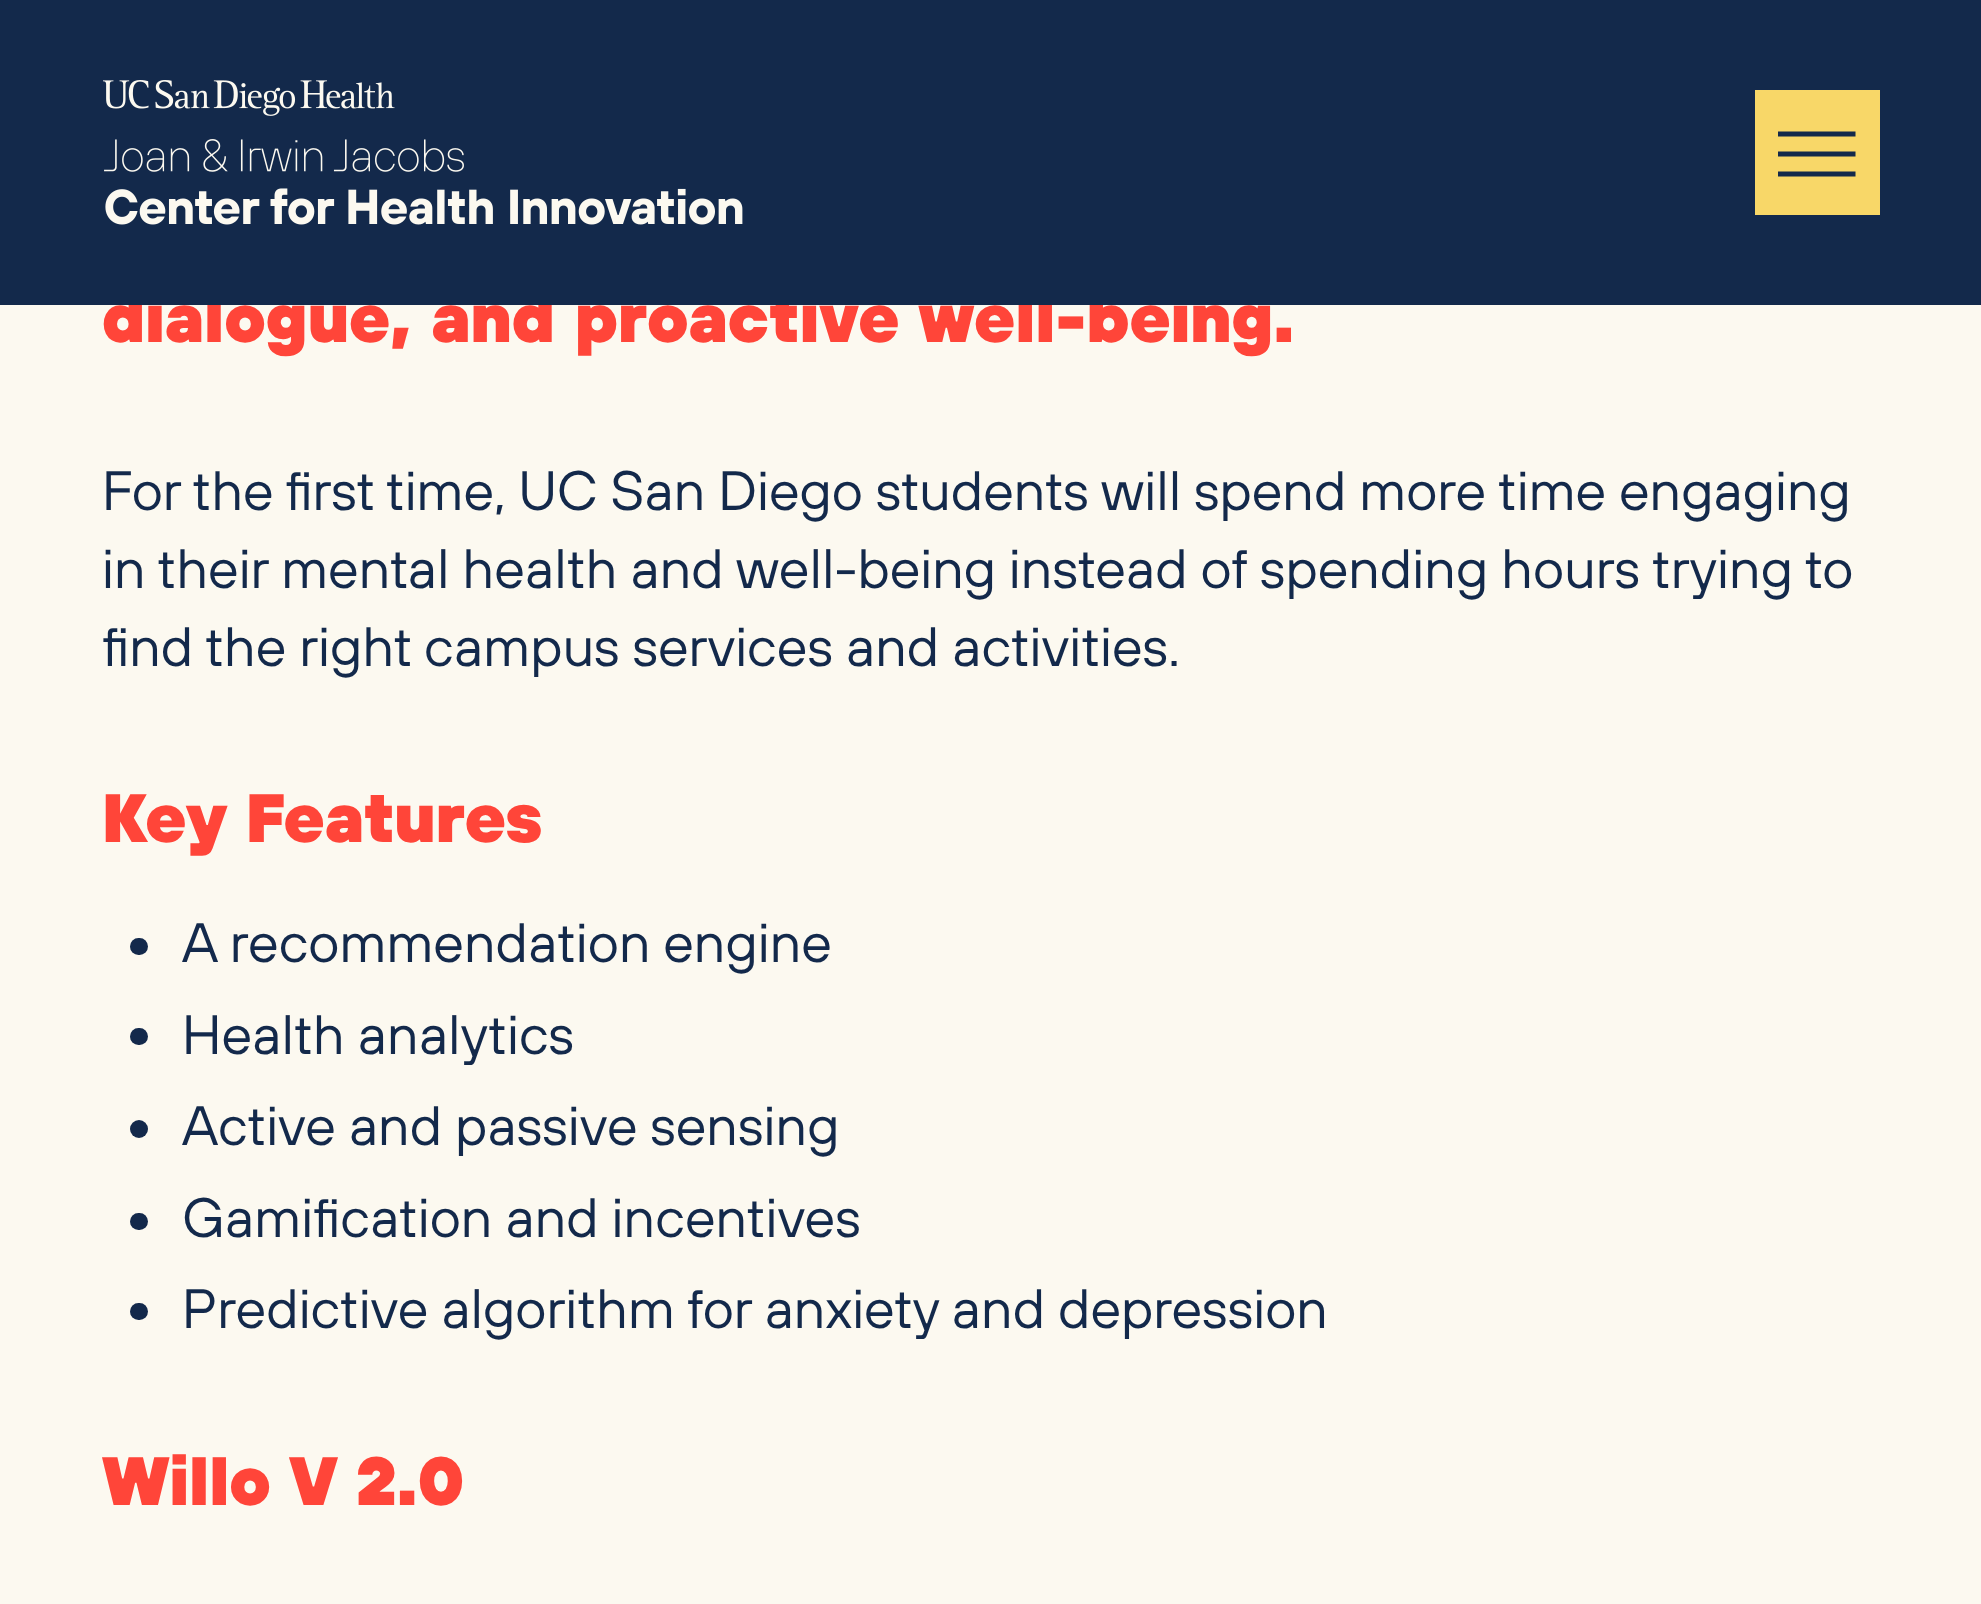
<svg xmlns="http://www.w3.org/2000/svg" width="1981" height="1604">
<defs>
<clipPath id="clip1"><rect x="1778" y="115" width="80" height="78"/></clipPath>
</defs>
<rect width="100%" height="100%" fill="#fcf9f0"/>
<text x="102" y="342" style="font-family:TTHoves;font-size:68.25px;font-weight:900;fill:#ff4539">dialogue, and proactive well-being.</text>
<rect width="1981" height="305" fill="#13294b"/>
<image x="103" y="80" width="640" height="145" href="media/1.png"/>
<rect x="1755" y="90" width="125" height="125" fill="#f8d768"/>
<g clip-path="url(#clip1)">
<path d="M1777.5 134h78m-78 40h78m-78-20h78" fill="none" stroke="#13294b" stroke-width="5"/>
</g>
<text x="102" y="510" style="font-family:TTHoves;font-size:55.55px;fill:#13294b">For the first time, UC San Diego students will spend more time engaging</text>
<text x="102" y="588" style="font-family:TTHoves;font-size:55.55px;fill:#13294b">in their mental health and well-being instead of spending hours trying to</text>
<text x="102" y="666" style="font-family:TTHoves;font-size:55.55px;fill:#13294b">find the right campus services and activities.</text>
<text x="102" y="842" style="font-family:TTHoves;font-size:68.25px;font-weight:900;fill:#ff4539">Key Features</text>
<rect x="130" y="938" width="18" height="17" rx="8.5" fill="#13294b"/>
<text x="182" y="962" style="font-family:TTHoves;font-size:55.55px;fill:#13294b">A recommendation engine</text>
<rect x="130" y="1028" width="18" height="17" rx="8.5" fill="#13294b"/>
<text x="182" y="1054" style="font-family:TTHoves;font-size:55.55px;fill:#13294b">Health analytics</text>
<circle cx="139" cy="1129" r="9" fill="#13294b"/>
<text x="182" y="1145" style="font-family:TTHoves;font-size:55.55px;fill:#13294b">Active and passive sensing</text>
<rect x="130" y="1213" width="18" height="17" rx="8.5" fill="#13294b"/>
<text x="182" y="1237" style="font-family:TTHoves;font-size:55.55px;fill:#13294b">Gamification and incentives</text>
<rect x="130" y="1303" width="18" height="17" rx="8.5" fill="#13294b"/>
<text x="182" y="1328" style="font-family:TTHoves;font-size:55.55px;fill:#13294b">Predictive algorithm for anxiety and depression</text>
<text x="102" y="1505" style="font-family:TTHoves;font-size:68.25px;font-weight:900;fill:#ff4539">Willo V 2.0</text>
</svg>
